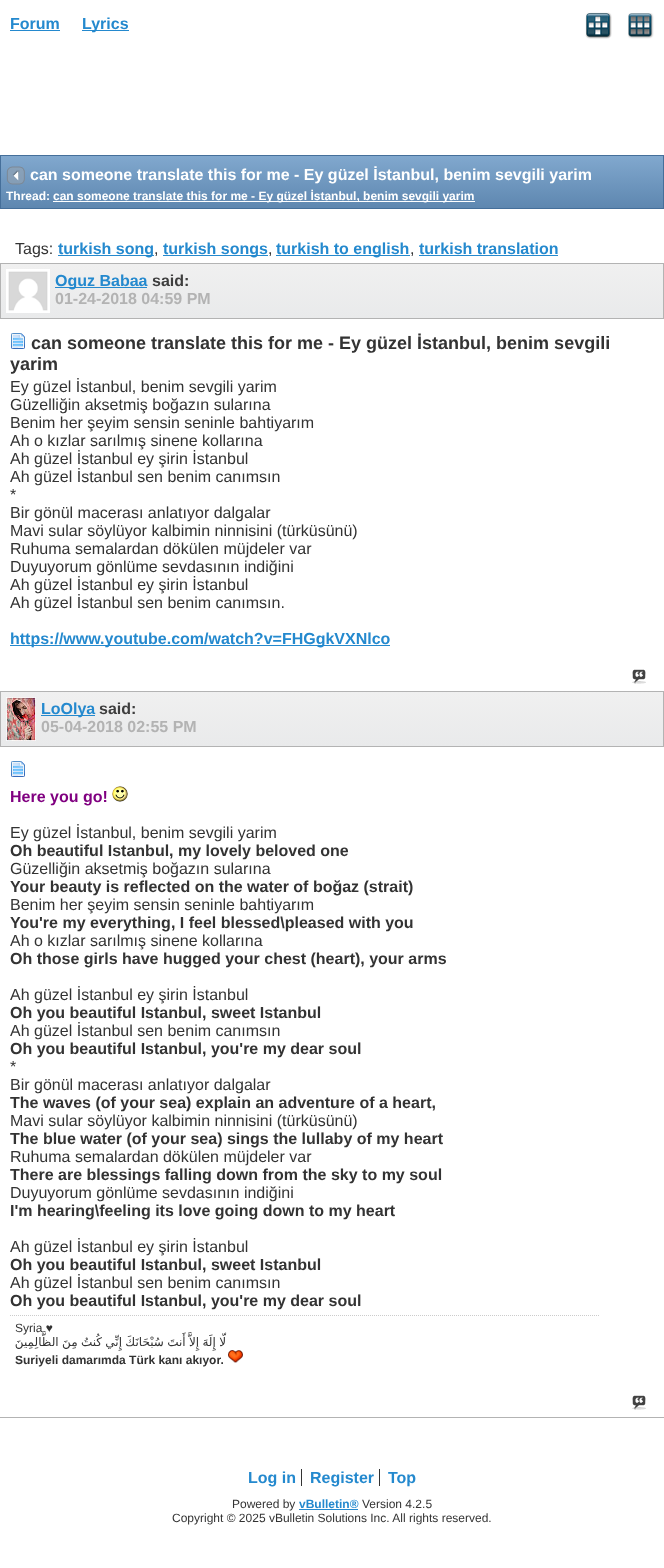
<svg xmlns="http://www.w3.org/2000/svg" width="664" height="1568">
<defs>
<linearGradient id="g1" gradientUnits="userSpaceOnUse" x1="332" y1="156" x2="332" y2="208"><stop offset="0" stop-color="#81a8ce"/><stop offset="1" stop-color="#5e87b0"/></linearGradient>
<linearGradient id="g2" gradientUnits="userSpaceOnUse" x1="332" y1="264" x2="332" y2="318"><stop offset="0" stop-color="#f0f0f0"/><stop offset="1" stop-color="#e9eaeb"/></linearGradient>
<linearGradient id="g3" gradientUnits="userSpaceOnUse" x1="332" y1="692" x2="332" y2="746"><stop offset="0" stop-color="#f0f0f0"/><stop offset="1" stop-color="#e9eaeb"/></linearGradient>
</defs>
<rect width="100%" height="100%" fill="#fff"/>
<text x="10" y="29" style="font-family:Liberation Sans;font-size:16px;font-weight:bold;fill:#2489ce">Forum</text>
<rect x="10" y="30" width="50" height="1" fill="#2489ce"/>
<rect x="82" y="30" width="47" height="1" fill="#2489ce"/>
<text x="82" y="29" style="font-family:Liberation Sans;font-size:16px;font-weight:bold;fill:#2489ce">Lyrics</text>
<image x="585" y="12" width="27" height="27" href="media/1.png"/>
<image x="628" y="13" width="26" height="26" href="media/2.png"/>
<rect x="1" y="156" width="662" height="52" fill="url(#g1)"/>
<rect x="0.5" y="155.5" width="663" height="53" fill="none" stroke="#456f9a"/>
<image x="6" y="166" width="19" height="19" href="media/3.png"/>
<text x="30" y="180" style="font-family:Liberation Sans;font-size:16px;font-weight:bold;fill:#fff">can someone translate this for me - Ey güzel İstanbul, benim sevgili yarim</text>
<text x="6" y="200" style="font-family:Liberation Sans;font-size:12px;font-weight:bold;fill:#fff">Thread:</text>
<rect x="53" y="201" width="422" height="1" fill="#fff"/>
<text x="53" y="200" style="font-family:Liberation Sans;font-size:12px;font-weight:bold;fill:#fff">can someone translate this for me - Ey güzel İstanbul, benim sevgili yarim</text>
<text x="15" y="254" style="font-family:Liberation Sans;font-size:16px;fill:#333">Tags:</text>
<rect x="58" y="255" width="96" height="1" fill="#2489ce"/>
<text x="58" y="254" style="font-family:Liberation Sans;font-size:16px;font-weight:bold;fill:#2489ce">turkish song</text>
<text x="154" y="254" style="font-family:Liberation Sans;font-size:16px;fill:#333">,</text>
<rect x="163" y="255" width="105" height="1" fill="#2489ce"/>
<text x="163" y="254" style="font-family:Liberation Sans;font-size:16px;font-weight:bold;fill:#2489ce">turkish songs</text>
<text x="268" y="254" style="font-family:Liberation Sans;font-size:16px;fill:#333">,</text>
<rect x="276" y="255" width="134" height="1" fill="#2489ce"/>
<text x="276" y="254" style="font-family:Liberation Sans;font-size:16px;font-weight:bold;fill:#2489ce">turkish to english</text>
<text x="410" y="254" style="font-family:Liberation Sans;font-size:16px;fill:#333">,</text>
<text x="419" y="254" style="font-family:Liberation Sans;font-size:16px;font-weight:bold;fill:#2489ce">turkish translation</text>
<rect x="419" y="255" width="139" height="1" fill="#2489ce"/>
<rect y="1417" width="664" height="1" fill="#b3b3b3"/>
<rect x="1" y="264" width="662" height="54" fill="url(#g2)"/>
<rect x="0.5" y="263.5" width="663" height="55" fill="none" stroke="#b3b3b3"/>
<image x="6" y="269" width="44" height="44" href="media/4.png"/>
<rect x="55" y="287" width="92" height="1" fill="#2489ce"/>
<text x="55" y="286" style="font-family:Liberation Sans;font-size:16px;font-weight:bold;fill:#2489ce">Oguz Babaa</text>
<text x="152" y="286" style="font-family:Liberation Sans;font-size:16px;font-weight:bold;fill:#3e3e3e">said:</text>
<text x="55" y="304" style="font-family:Liberation Sans;font-size:16px;font-weight:bold;fill:#b3b3b3">01-24-2018 04:59 PM</text>
<image x="11" y="333" width="14" height="16" href="media/5.png"/>
<text x="31" y="349" style="font-family:Liberation Sans;font-size:18px;font-weight:bold;fill:#333">can someone translate this for me - Ey güzel İstanbul, benim sevgili</text>
<text x="10" y="370" style="font-family:Liberation Sans;font-size:18px;font-weight:bold;fill:#333">yarim</text>
<text x="10" y="392" style="font-family:Liberation Sans;font-size:16px;fill:#333">Ey güzel İstanbul, benim sevgili yarim</text>
<text x="10" y="410" style="font-family:Liberation Sans;font-size:16px;fill:#333">Güzelliğin aksetmiş boğazın sularına</text>
<text x="10" y="428" style="font-family:Liberation Sans;font-size:16px;fill:#333">Benim her şeyim sensin seninle bahtiyarım</text>
<text x="10" y="446" style="font-family:Liberation Sans;font-size:16px;fill:#333">Ah o kızlar sarılmış sinene kollarına</text>
<text x="10" y="464" style="font-family:Liberation Sans;font-size:16px;fill:#333">Ah güzel İstanbul ey şirin İstanbul</text>
<text x="10" y="482" style="font-family:Liberation Sans;font-size:16px;fill:#333">Ah güzel İstanbul sen benim canımsın</text>
<text x="10" y="500" style="font-family:Liberation Sans;font-size:16px;fill:#333">*</text>
<text x="10" y="518" style="font-family:Liberation Sans;font-size:16px;fill:#333">Bir gönül macerası anlatıyor dalgalar</text>
<text x="10" y="536" style="font-family:Liberation Sans;font-size:16px;fill:#333">Mavi sular söylüyor kalbimin ninnisini (türküsünü)</text>
<text x="10" y="554" style="font-family:Liberation Sans;font-size:16px;fill:#333">Ruhuma semalardan dökülen müjdeler var</text>
<text x="10" y="572" style="font-family:Liberation Sans;font-size:16px;fill:#333">Duyuyorum gönlüme sevdasının indiğini</text>
<text x="10" y="590" style="font-family:Liberation Sans;font-size:16px;fill:#333">Ah güzel İstanbul ey şirin İstanbul</text>
<text x="10" y="608" style="font-family:Liberation Sans;font-size:16px;fill:#333">Ah güzel İstanbul sen benim canımsın.</text>
<rect x="10" y="645" width="380" height="1" fill="#2489ce"/>
<text x="10" y="644" style="font-family:Liberation Sans;font-size:16px;font-weight:bold;fill:#2489ce">https://www.youtube.com/watch?v=FHGgkVXNlco</text>
<image x="632" y="669" width="14" height="15" href="media/6.png"/>
<rect x="1" y="692" width="662" height="54" fill="url(#g3)"/>
<rect x="0.5" y="691.5" width="663" height="55" fill="none" stroke="#b3b3b3"/>
<image x="6" y="697" width="30" height="44" href="media/7.png"/>
<rect x="41" y="715" width="54" height="1" fill="#2489ce"/>
<text x="41" y="714" style="font-family:Liberation Sans;font-size:16px;font-weight:bold;fill:#2489ce">LoOlya</text>
<text x="99" y="714" style="font-family:Liberation Sans;font-size:16px;font-weight:bold;fill:#3e3e3e">said:</text>
<text x="41" y="732" style="font-family:Liberation Sans;font-size:16px;font-weight:bold;fill:#b3b3b3">05-04-2018 02:55 PM</text>
<image x="11" y="761" width="14" height="16" href="media/5.png"/>
<text x="10" y="802" style="font-family:Liberation Sans;font-size:16px;font-weight:bold;fill:#800080">Here you go!</text>
<image x="112" y="786" width="16" height="16" href="media/8.png"/>
<text x="10" y="838" style="font-family:Liberation Sans;font-size:16px;fill:#333">Ey güzel İstanbul, benim sevgili yarim</text>
<text x="10" y="856" style="font-family:Liberation Sans;font-size:16px;font-weight:bold;fill:#333">Oh beautiful Istanbul, my lovely beloved one</text>
<text x="10" y="874" style="font-family:Liberation Sans;font-size:16px;fill:#333">Güzelliğin aksetmiş boğazın sularına</text>
<text x="10" y="892" style="font-family:Liberation Sans;font-size:16px;font-weight:bold;fill:#333">Your beauty is reflected on the water of boğaz (strait)</text>
<text x="10" y="910" style="font-family:Liberation Sans;font-size:16px;fill:#333">Benim her şeyim sensin seninle bahtiyarım</text>
<text x="10" y="928" style="font-family:Liberation Sans;font-size:16px;font-weight:bold;fill:#333">You're my everything, I feel blessed\pleased with you</text>
<text x="10" y="946" style="font-family:Liberation Sans;font-size:16px;fill:#333">Ah o kızlar sarılmış sinene kollarına</text>
<text x="10" y="964" style="font-family:Liberation Sans;font-size:16px;font-weight:bold;fill:#333">Oh those girls have hugged your chest (heart), your arms</text>
<text x="10" y="1000" style="font-family:Liberation Sans;font-size:16px;fill:#333">Ah güzel İstanbul ey şirin İstanbul</text>
<text x="10" y="1018" style="font-family:Liberation Sans;font-size:16px;font-weight:bold;fill:#333">Oh you beautiful Istanbul, sweet Istanbul</text>
<text x="10" y="1036" style="font-family:Liberation Sans;font-size:16px;fill:#333">Ah güzel İstanbul sen benim canımsın</text>
<text x="10" y="1054" style="font-family:Liberation Sans;font-size:16px;font-weight:bold;fill:#333">Oh you beautiful Istanbul, you're my dear soul</text>
<text x="10" y="1072" style="font-family:Liberation Sans;font-size:16px;fill:#333">*</text>
<text x="10" y="1090" style="font-family:Liberation Sans;font-size:16px;fill:#333">Bir gönül macerası anlatıyor dalgalar</text>
<text x="10" y="1108" style="font-family:Liberation Sans;font-size:16px;font-weight:bold;fill:#333">The waves (of your sea) explain an adventure of a heart,</text>
<text x="10" y="1126" style="font-family:Liberation Sans;font-size:16px;fill:#333">Mavi sular söylüyor kalbimin ninnisini (türküsünü)</text>
<text x="10" y="1144" style="font-family:Liberation Sans;font-size:16px;font-weight:bold;fill:#333">The blue water (of your sea) sings the lullaby of my heart</text>
<text x="10" y="1162" style="font-family:Liberation Sans;font-size:16px;fill:#333">Ruhuma semalardan dökülen müjdeler var</text>
<text x="10" y="1180" style="font-family:Liberation Sans;font-size:16px;font-weight:bold;fill:#333">There are blessings falling down from the sky to my soul</text>
<text x="10" y="1198" style="font-family:Liberation Sans;font-size:16px;fill:#333">Duyuyorum gönlüme sevdasının indiğini</text>
<text x="10" y="1216" style="font-family:Liberation Sans;font-size:16px;font-weight:bold;fill:#333">I'm hearing\feeling its love going down to my heart</text>
<text x="10" y="1252" style="font-family:Liberation Sans;font-size:16px;fill:#333">Ah güzel İstanbul ey şirin İstanbul</text>
<text x="10" y="1270" style="font-family:Liberation Sans;font-size:16px;font-weight:bold;fill:#333">Oh you beautiful Istanbul, sweet Istanbul</text>
<text x="10" y="1288" style="font-family:Liberation Sans;font-size:16px;fill:#333">Ah güzel İstanbul sen benim canımsın</text>
<text x="10" y="1306" style="font-family:Liberation Sans;font-size:16px;font-weight:bold;fill:#333">Oh you beautiful Istanbul, you're my dear soul</text>
<path d="M10 1315.5h590" fill="none" stroke="#ccc" stroke-dasharray="1 1"/>
<text x="15" y="1332" style="font-family:Liberation Sans;font-size:12px;fill:#333">Syria ♥</text>
<text x="226" y="1346" word-spacing="-0.5" style="font-family:DejaVu Sans;font-size:12px;direction:rtl;fill:#333">لّا إِلَهَ إِلاَّ أَنتَ سُبْحَانَكَ إِنِّي كُنتُ مِنَ الظَّالِمِينَ</text>
<text x="15" y="1364" style="font-family:Liberation Sans;font-size:12px;font-weight:bold;fill:#333">Suriyeli damarımda Türk kanı akıyor.</text>
<image x="228" y="1350" width="15" height="13" href="media/9.png"/>
<image x="632" y="1395" width="14" height="15" href="media/6.png"/>
<text x="248" y="1483" style="font-family:Liberation Sans;font-size:16px;font-weight:bold;fill:#2489ce">Log in</text>
<rect x="301" y="1469" width="1" height="17" fill="#333"/>
<text x="310" y="1483" style="font-family:Liberation Sans;font-size:16px;font-weight:bold;fill:#2489ce">Register</text>
<rect x="379" y="1469" width="1" height="17" fill="#333"/>
<text x="388" y="1483" style="font-family:Liberation Sans;font-size:16px;font-weight:bold;fill:#2489ce">Top</text>
<text x="232" y="1508" style="font-family:Liberation Sans;font-size:12px;fill:#333">Powered by</text>
<text x="299" y="1508" style="font-family:Liberation Sans;font-size:12px;font-weight:bold;fill:#2489ce">vBulletin®</text>
<rect x="299" y="1509" width="59" height="1" fill="#2489ce"/>
<text x="362" y="1508" style="font-family:Liberation Sans;font-size:12px;fill:#333">Version 4.2.5</text>
<text x="172" y="1522" style="font-family:Liberation Sans;font-size:12px;fill:#333">Copyright © 2025 vBulletin Solutions Inc. All rights reserved.</text>
</svg>
